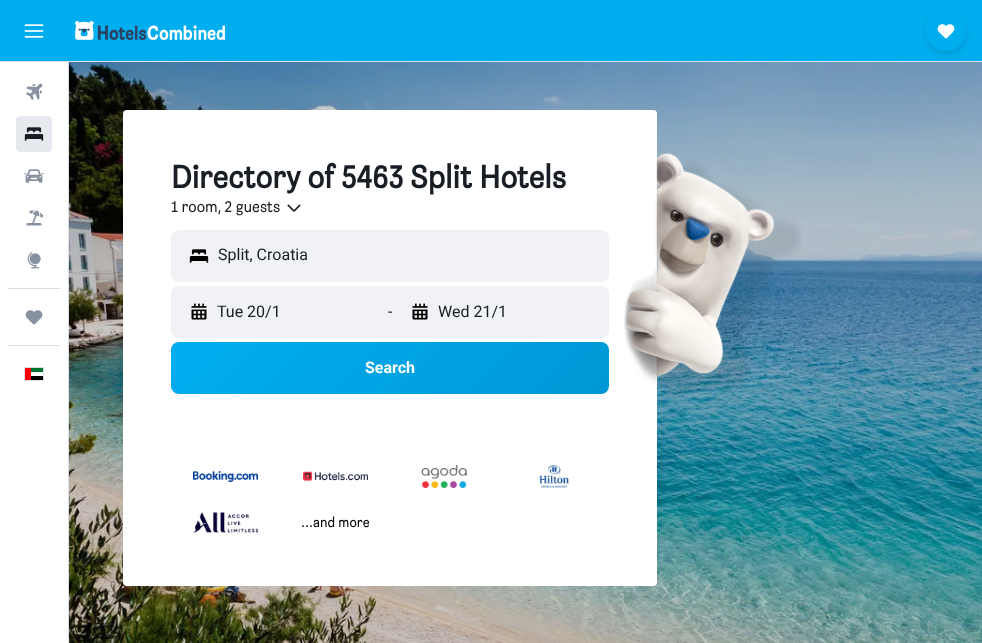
<svg xmlns="http://www.w3.org/2000/svg" width="982" height="643">
<defs>
<linearGradient id="g1" gradientUnits="userSpaceOnUse" x1="268" y1="246" x2="513" y2="491"><stop offset="0" stop-color="#00aef0"/><stop offset="1" stop-color="#0098d6"/></linearGradient>
</defs>
<rect width="100%" height="100%" fill="#fff"/>
<rect y="61" width="982" height="1" fill="#d9dfe8"/>
<rect width="982" height="61" fill="#00aef0"/>
<image x="24" y="24" width="20" height="14" href="media/1.png"/>
<image x="75" y="21" width="150" height="19" href="media/2.png"/>
<image x="69" y="62" width="913" height="581" href="media/10.png"/>
<rect x="926" y="14" width="40" height="40" rx="20" fill="#191e2429" filter="blur(3px)"/>
<circle cx="946" cy="31" r="20" fill="#00aef0"/>
<image x="937" y="24" width="18" height="15" href="media/3.png"/>
<rect x="68" y="62" width="1" height="581" fill="#d9dfe8"/>
<image x="25" y="83" width="18" height="18" href="media/4.png"/>
<rect x="16" y="116" width="36" height="36" rx="4" fill="#e6eaef"/>
<image x="24" y="127" width="20" height="14" href="media/5.png"/>
<image x="24" y="169" width="20" height="14" href="media/6.png"/>
<image x="26" y="210" width="18" height="16" href="media/7.png"/>
<image x="27" y="252" width="14" height="17" href="media/8.png"/>
<rect x="8" y="288" width="52" height="1" fill="#d9dfe8"/>
<image x="25" y="310" width="18" height="15" href="media/9.png"/>
<rect x="8" y="345" width="52" height="1" fill="#d9dfe8"/>
<rect x="24.5" y="367.5" width="19" height="13" fill="none" stroke="#d9dfe8"/>
<rect x="25" y="368" width="18" height="4" fill="#00732f"/>
<rect x="25" y="376" width="18" height="4" fill="#000"/>
<rect x="25" y="368" width="6" height="12" fill="#f00"/>
<rect x="123" y="110" width="534" height="476" rx="4" fill="#fff"/>
<text x="171" y="188" style="font-family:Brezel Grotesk;font-size:32px;font-weight:bold;fill:#191e24">Directory of 5463 Split Hotels</text>
<image x="624" y="151" width="179" height="248" href="media/11.png"/>
<text x="171" y="212" style="font-family:Brezel Grotesk;font-size:16px;fill:#191e24">1 room, 2 guests</text>
<image x="287" y="204" width="14" height="8" href="media/12.png"/>
<rect x="171.5" y="230.5" width="437" height="51" rx="7.5" fill="#f0f2f5" stroke="#f0f2f5"/>
<image x="189" y="249" width="20" height="14" href="media/13.png"/>
<text x="218" y="260" style="font-family:Roboto;font-size:16px;fill:#191e24">Split, Croatia</text>
<rect x="171" y="286" width="438" height="52" rx="8" fill="#f0f2f5"/>
<rect x="171" y="286" width="217" height="52" rx="8" fill="#f0f2f5"/>
<image x="191" y="303" width="16" height="17" href="media/14.png"/>
<text x="217" y="317" style="font-family:Roboto;font-size:16px;fill:#191e24">Tue 20/1</text>
<text x="388" y="317" style="font-family:Roboto;font-size:16px;fill:#191e24">-</text>
<rect x="392" y="286" width="217" height="52" rx="8" fill="#f0f2f5"/>
<image x="412" y="303" width="16" height="17" href="media/14.png"/>
<text x="438" y="317" style="font-family:Roboto;font-size:16px;fill:#191e24">Wed 21/1</text>
<rect x="171" y="342" width="438" height="52" rx="8" fill="url(#g1)"/>
<text x="365" y="373" style="font-family:Roboto;font-size:16px;font-weight:bold;fill:#fff">Search</text>
<image x="193" y="471" width="65" height="11" href="media/15.png"/>
<image x="303" y="471" width="65" height="10" href="media/16.png"/>
<image x="421" y="465" width="46" height="23" href="media/17.png"/>
<image x="539" y="465" width="30" height="23" href="media/18.png"/>
<image x="193" y="512" width="65" height="21" href="media/19.png"/>
<text x="301" y="527" style="font-family:Brezel Grotesk;font-size:14px;fill:#000">...and more</text>
</svg>
